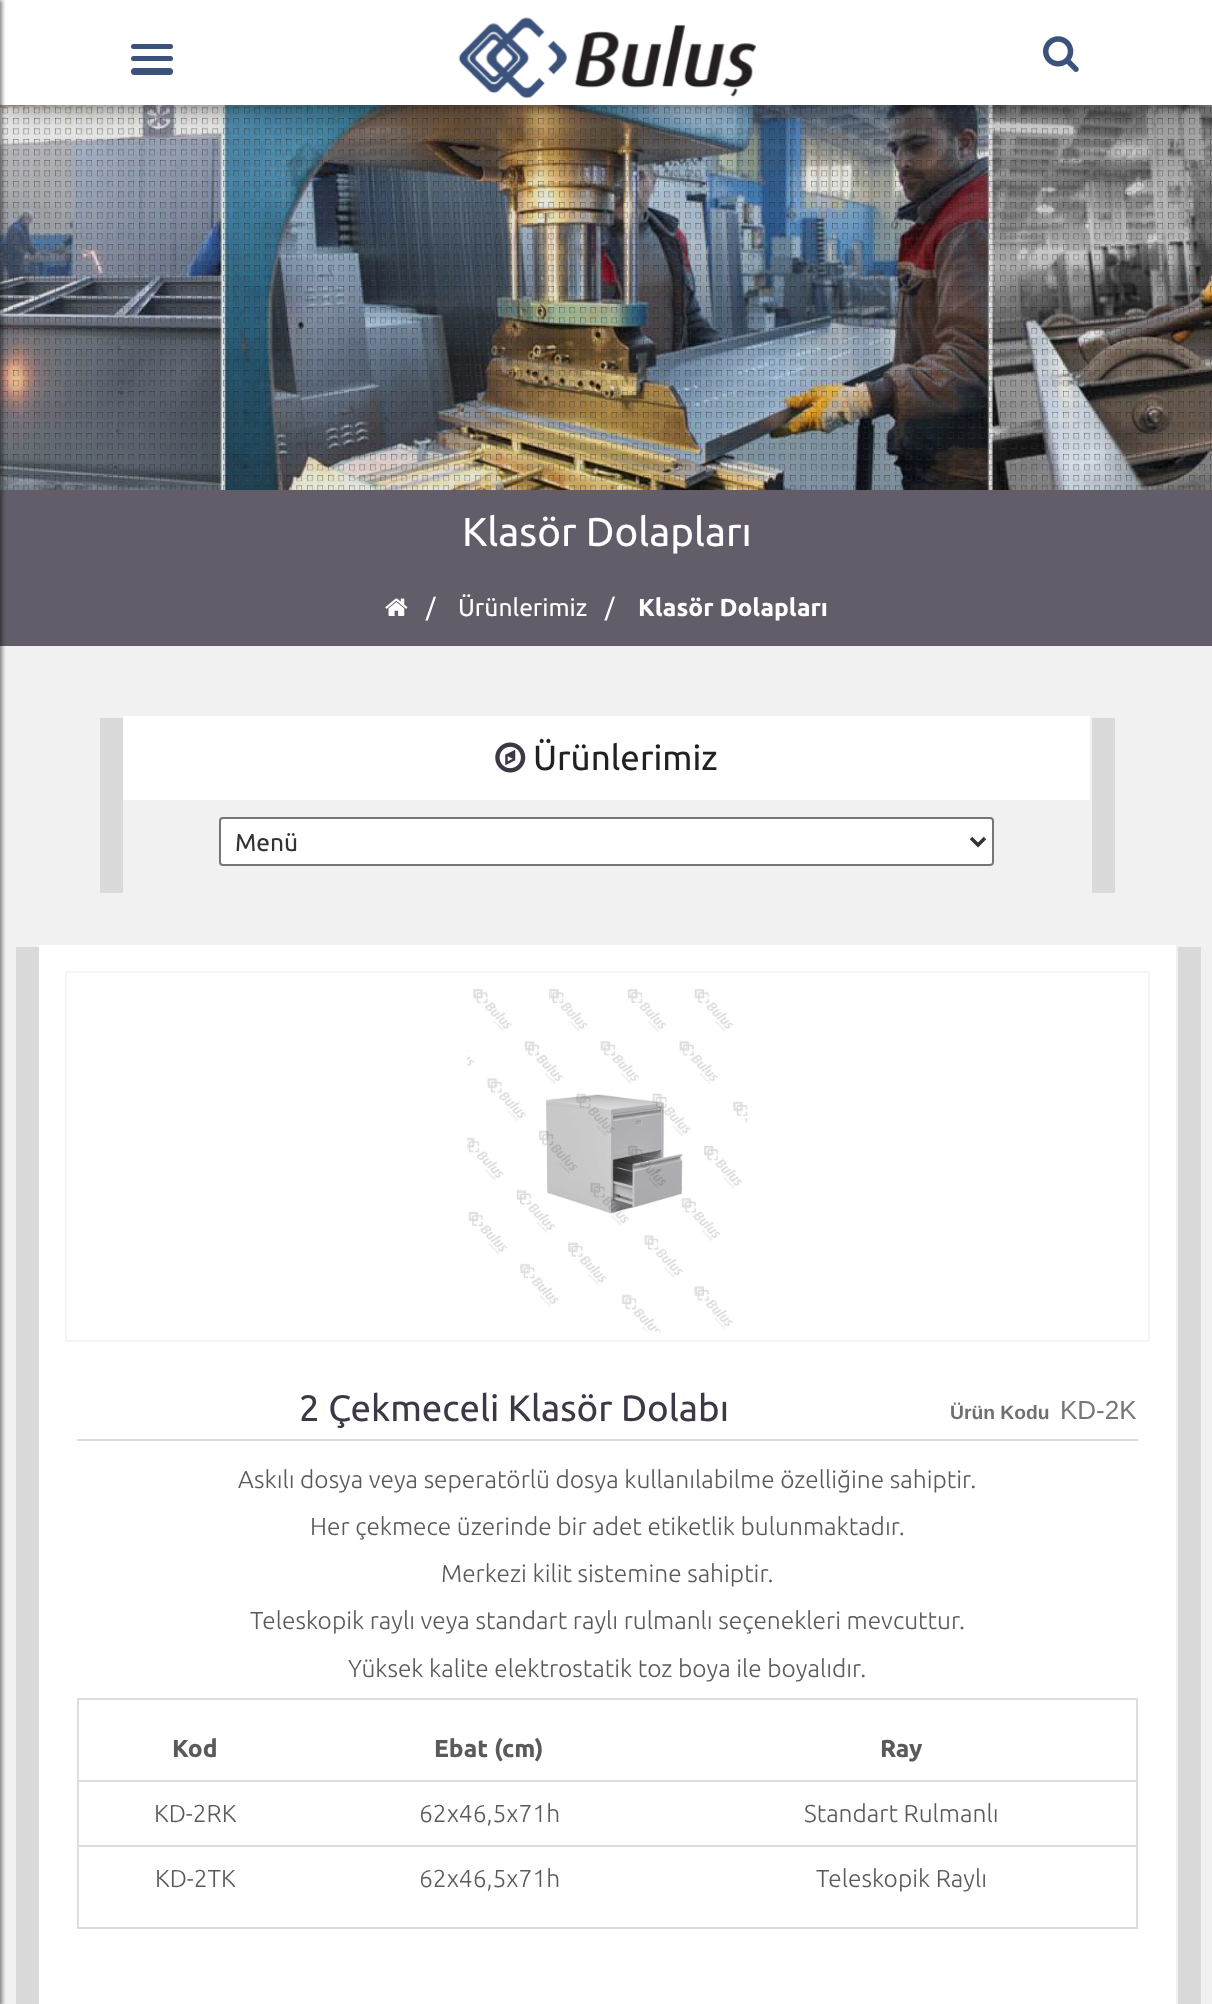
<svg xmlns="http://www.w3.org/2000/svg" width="1212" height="2004">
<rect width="100%" height="100%" fill="#f1f1f1"/>
<image x="0" y="105" width="1212" height="385" href="media/3.png"/>
<image x="2" y="107" width="1210" height="383" href="media/4.png"/>
<rect x="9" y="9" width="1195" height="87" fill="#000" filter="blur(16px)"/>
<rect width="1212" height="105" fill="#fff"/>
<rect x="131" y="44" width="42" height="5" rx="2.5" fill="#3b527b"/>
<rect x="131" y="56" width="42" height="5" rx="2.5" fill="#3b527b"/>
<rect x="131" y="68" width="42" height="7" rx="3.5" fill="#3b527b"/>
<image x="458" y="17" width="298" height="81" href="media/1.png"/>
<image x="1043" y="36" width="36" height="36" href="media/2.png"/>
<rect y="490" width="1212" height="156" fill="#625d68"/>
<rect x="-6" width="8" height="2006" fill="#00000080" filter="blur(2px)"/>
<text x="462" y="546" style="font-family:Ubuntu;font-size:40.25px;fill:#fff">Klasör Dolapları</text>
<image x="385" y="598" width="23" height="18" href="media/5.png"/>
<text x="426" y="616" style="font-family:Ubuntu;font-size:24.5px;fill:#fff">/</text>
<text x="458" y="616" style="font-family:Ubuntu;font-size:24.5px;fill:#fff">Ürünlerimiz</text>
<text x="605" y="616" style="font-family:Ubuntu;font-size:24.5px;fill:#fff">/</text>
<text x="638" y="616" style="font-family:Ubuntu;font-size:24.5px;font-weight:bold;fill:#fff">Klasör Dolapları</text>
<rect x="100" y="718" width="23" height="175" fill="#dadada"/>
<rect x="123" y="716" width="967" height="84" fill="#fff"/>
<image x="495" y="742" width="31" height="31" href="media/6.png"/>
<text x="533" y="770" style="font-family:Ubuntu;font-size:35px;fill:#212121">Ürünlerimiz</text>
<rect x="1092" y="718" width="23" height="175" fill="#dadada"/>
<rect x="220" y="818" width="773" height="47" rx="3" fill="#fff" stroke="#767676" stroke-width="2"/>
<path d="M971 838l7 7l7-7" fill="none" stroke="#333" stroke-width="3.5"/>
<text x="235" y="851" style="font-family:Ubuntu;font-size:24.5px;fill:#333">Menü</text>
<rect x="39" y="945" width="1137" height="1059" fill="#fff"/>
<rect x="37" y="945" width="2" height="2" fill="#fbfbfb"/>
<rect x="16" y="947" width="23" height="1057" fill="#dadada"/>
<rect x="66" y="972" width="1083" height="369" fill="none" stroke="#f5f5f5" stroke-width="2"/>
<image x="467" y="989" width="281" height="343" href="media/7.png"/>
<rect x="77" y="1439" width="1061" height="2" fill="#ddd"/>
<text x="299" y="1421" style="font-family:Ubuntu;font-size:36.75px;fill:#3e3846">2 Çekmeceli Klasör Dolabı</text>
<text x="950" y="1419" style="font-family:Liberation Sans;font-size:19.25px;font-weight:bold;fill:#707070">Ürün Kodu</text>
<text x="1060" y="1419" style="font-family:Liberation Sans;font-size:26px;fill:#777">KD-2K</text>
<text x="238" y="1488" style="font-family:Ubuntu;font-size:24.5px;font-weight:300;fill:#5a5a5a">Askılı dosya veya seperatörlü dosya kullanılabilme özelliğine sahiptir.</text>
<text x="310" y="1535" style="font-family:Ubuntu;font-size:24.5px;font-weight:300;fill:#5a5a5a">Her çekmece üzerinde bir adet etiketlik bulunmaktadır.</text>
<text x="441" y="1582" style="font-family:Ubuntu;font-size:24.5px;font-weight:300;fill:#5a5a5a">Merkezi kilit sistemine sahiptir.</text>
<text x="250" y="1629" style="font-family:Ubuntu;font-size:24.5px;font-weight:300;fill:#5a5a5a">Teleskopik raylı veya standart raylı rulmanlı seçenekleri mevcuttur.</text>
<text x="348" y="1677" style="font-family:Ubuntu;font-size:24.5px;font-weight:300;fill:#5a5a5a">Yüksek kalite elektrostatik toz boya ile boyalıdır.</text>
<rect x="78" y="1699" width="1059" height="229" fill="none" stroke="#ddd" stroke-width="2"/>
<text x="172" y="1757" style="font-family:Ubuntu;font-size:24.5px;font-weight:bold;fill:#5a5a5a">Kod</text>
<text x="434" y="1757" style="font-family:Ubuntu;font-size:24.5px;font-weight:bold;fill:#5a5a5a">Ebat (cm)</text>
<text x="880" y="1757" style="font-family:Ubuntu;font-size:24.5px;font-weight:bold;fill:#5a5a5a">Ray</text>
<text x="154" y="1822" style="font-family:Ubuntu;font-size:24.5px;font-weight:300;fill:#5a5a5a">KD-2RK</text>
<text x="419" y="1822" style="font-family:Ubuntu;font-size:24.5px;font-weight:300;fill:#5a5a5a">62x46,5x71h</text>
<rect x="79" y="1780" width="1057" height="2" fill="#ddd"/>
<text x="804" y="1822" style="font-family:Ubuntu;font-size:24.5px;font-weight:300;fill:#5a5a5a">Standart Rulmanlı</text>
<text x="155" y="1887" style="font-family:Ubuntu;font-size:24.5px;font-weight:300;fill:#5a5a5a">KD-2TK</text>
<text x="419" y="1887" style="font-family:Ubuntu;font-size:24.5px;font-weight:300;fill:#5a5a5a">62x46,5x71h</text>
<rect x="79" y="1845" width="1057" height="2" fill="#ddd"/>
<text x="816" y="1887" style="font-family:Ubuntu;font-size:24.5px;font-weight:300;fill:#5a5a5a">Teleskopik Raylı</text>
<rect x="1178" y="947" width="23" height="1057" fill="#dadada"/>
</svg>
